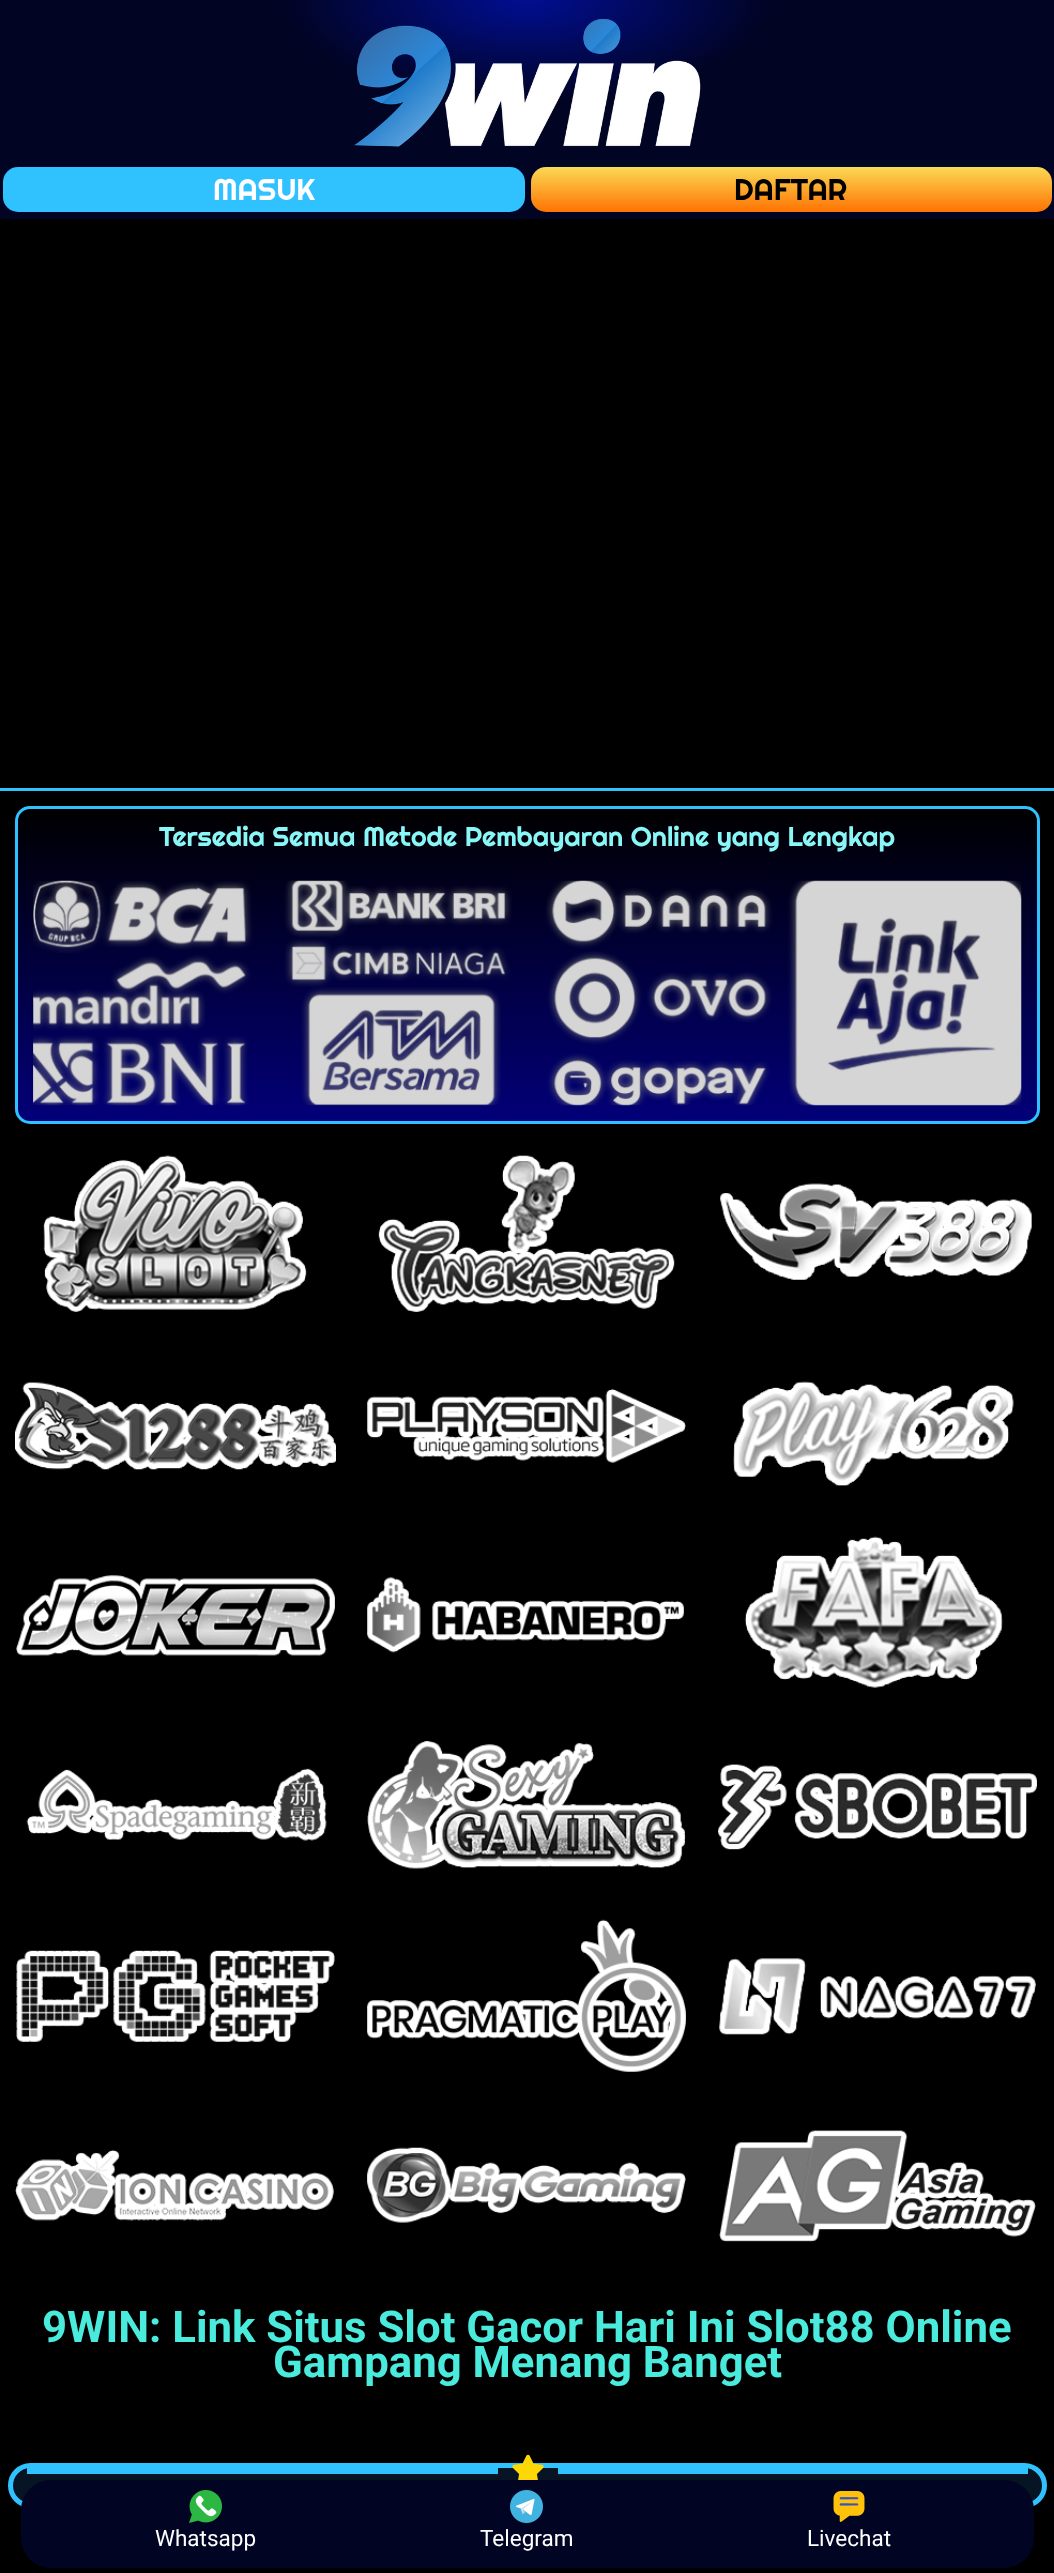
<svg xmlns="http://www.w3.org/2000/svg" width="1054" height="2573">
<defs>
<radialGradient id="g1" gradientUnits="userSpaceOnUse" cx="0" cy="0" r="1" gradientTransform="matrix(746 0 0 310 527 0)"><stop offset="0" stop-color="#010e91"/><stop offset="0.33" stop-color="#010423"/></radialGradient>
<linearGradient id="g2" gradientUnits="userSpaceOnUse" x1="791" y1="166" x2="791" y2="212"><stop offset="0" stop-color="#fadb56"/><stop offset="1" stop-color="#ff7303"/></linearGradient>
<clipPath id="clip1"><rect x="15" y="806" width="1025" height="318" rx="15"/></clipPath>
<linearGradient id="g3" gradientUnits="userSpaceOnUse" x1="527" y1="809" x2="527" y2="1121"><stop offset="0" stop-color="#000"/><stop offset="1" stop-color="#020078"/></linearGradient>
</defs>
<rect width="100%" height="100%" fill="#000"/>
<rect width="1054" height="219" fill="url(#g1)"/>
<image x="354" y="19" width="347" height="128" href="media/1.png"/>
<rect x="3" y="167" width="522" height="45" rx="15" fill="#30c1ff"/>
<text x="213" y="200" style="font-family:Righteous;font-size:30px;fill:#fff">MASUK</text>
<rect x="531" y="167" width="521" height="45" rx="15" fill="url(#g2)"/>
<text x="734" y="200" style="font-family:Righteous;font-size:30px;fill:#000">DAFTAR</text>
<rect y="788" width="1054" height="3" fill="#30c1ff"/>
<g clip-path="url(#clip1)">
<rect x="15" y="809" width="1025" height="312" fill="url(#g3)"/>
</g>
<rect x="16.5" y="807.5" width="1022" height="315" rx="13.5" fill="none" stroke="#30c1ff" stroke-width="3"/>
<text x="159" y="846" style="font-family:Righteous;font-size:27px;fill:#8af7f7">Tersedia Semua Metode Pembayaran Online yang Lengkap</text>
<image x="33" y="880" width="989" height="226" href="media/2.png"/>
<image x="43" y="1155" width="264" height="157" href="media/3.png"/>
<image x="15" y="1382" width="321" height="88" href="media/4.png"/>
<image x="16" y="1575" width="319" height="81" href="media/5.png"/>
<image x="378" y="1155" width="297" height="157" href="media/6.png"/>
<image x="367" y="1388" width="319" height="75" href="media/7.png"/>
<image x="367" y="1577" width="317" height="76" href="media/8.png"/>
<image x="720" y="1183" width="312" height="97" href="media/9.png"/>
<image x="733" y="1381" width="281" height="105" href="media/10.png"/>
<image x="744" y="1536" width="259" height="152" href="media/11.png"/>
<image x="26" y="1768" width="301" height="73" href="media/12.png"/>
<image x="16" y="1950" width="319" height="92" href="media/13.png"/>
<image x="15" y="2149" width="319" height="72" href="media/14.png"/>
<image x="367" y="1740" width="319" height="129" href="media/15.png"/>
<image x="367" y="1919" width="319" height="153" href="media/16.png"/>
<image x="367" y="2147" width="319" height="76" href="media/17.png"/>
<image x="718" y="1764" width="319" height="86" href="media/18.png"/>
<image x="719" y="1958" width="317" height="77" href="media/19.png"/>
<image x="719" y="2130" width="317" height="112" href="media/20.png"/>
<text x="42" y="2342" style="font-family:Roboto;font-size:43.75px;font-weight:bold;fill:#4aeadc">9WIN: Link Situs Slot Gacor Hari Ini Slot88 Online</text>
<text x="273" y="2377" style="font-family:Roboto;font-size:43.75px;font-weight:bold;fill:#4aeadc">Gampang Menang Banget</text>
<rect x="10.5" y="2465.5" width="1034" height="40" rx="20" fill="#071424" stroke="#30c1ff" stroke-width="5"/>
<rect x="27" y="2468" width="471" height="6" fill="#30c1ff"/>
<image x="512" y="2454" width="32" height="26" href="media/21.png"/>
<rect x="558" y="2468" width="470" height="6" fill="#30c1ff"/>
<rect x="21" y="2480" width="1013" height="88" rx="30" fill="#010423"/>
<image x="189" y="2490" width="33" height="33" href="media/22.png"/>
<text x="155" y="2546" style="font-family:Roboto;font-size:22.5px;fill:#fff">Whatsapp</text>
<image x="510" y="2490" width="33" height="33" href="media/23.png"/>
<text x="480" y="2546" style="font-family:Roboto;font-size:22.5px;fill:#fff">Telegram</text>
<image x="833" y="2491" width="32" height="31" href="media/24.png"/>
<text x="807" y="2546" style="font-family:Roboto;font-size:22.5px;fill:#fff">Livechat</text>
</svg>
